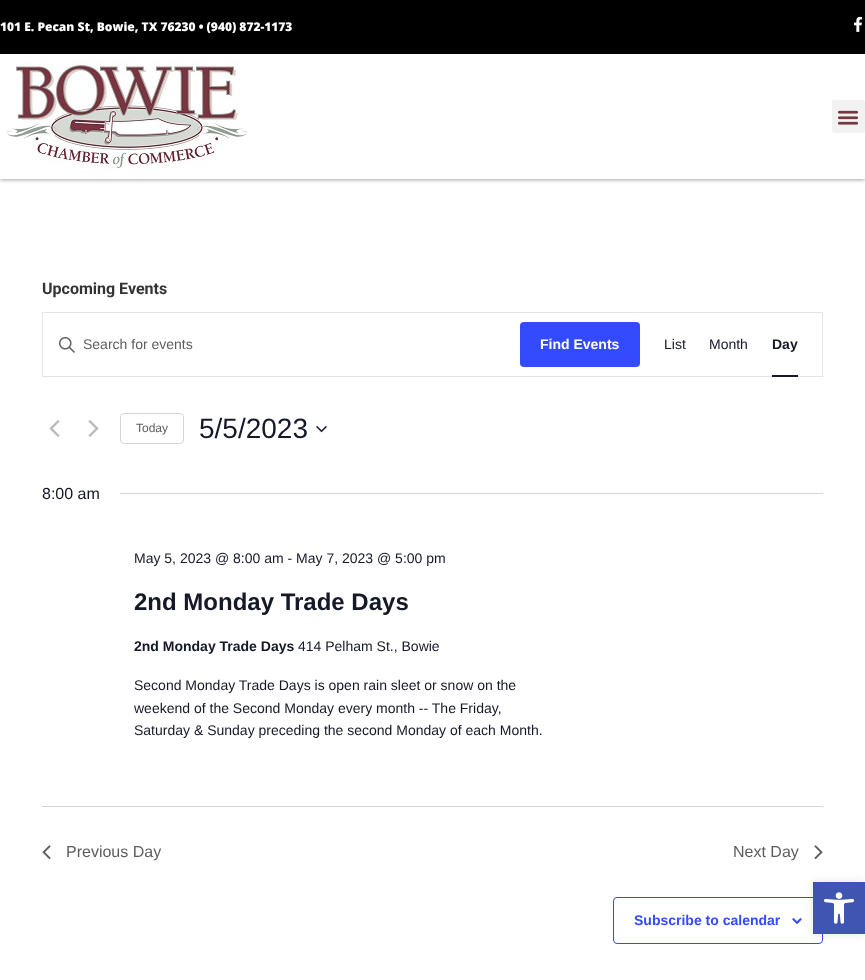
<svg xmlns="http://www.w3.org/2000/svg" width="865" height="980">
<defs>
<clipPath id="clip1"><path d="M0 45h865v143h-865zm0 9h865v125h-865z" clip-rule="evenodd"/></clipPath>
</defs>
<rect width="100%" height="100%" fill="#fff"/>
<rect width="865" height="54" fill="#000"/>
<text x="0" y="31" style="font-family:Open Sans;font-size:12px;font-weight:800;fill:#fff">101 E. Pecan St, Bowie, TX 76230 • (940) 872-1173</text>
<image x="854" y="16" width="8" height="16" href="media/1.png"/>
<g clip-path="url(#clip1)">
<rect y="54" width="865" height="125" fill="#00000080" filter="blur(2.5px)"/>
</g>
<image x="7" y="59" width="240" height="112" href="media/2.png"/>
<rect x="832" y="100" width="33" height="33" rx="3" fill="#f2f2f2"/>
<image x="837" y="110" width="22" height="15" href="media/3.png"/>
<text x="42" y="294" style="font-family:Roboto;font-size:16px;font-weight:bold;fill:#333">Upcoming Events</text>
<rect x="42.5" y="312.5" width="780" height="64" fill="none" stroke="#e4e4e4"/>
<image x="59" y="337" width="16" height="16" href="media/4.png"/>
<text x="83" y="349" style="font-family:Liberation Sans;font-size:14px;fill:#5d5d5d">Search for events</text>
<rect x="520" y="322" width="120" height="45" rx="4" fill="#334aff"/>
<text x="540" y="349" style="font-family:Liberation Sans;font-size:14px;font-weight:bold;fill:#fff">Find Events</text>
<text x="664" y="349" style="font-family:Liberation Sans;font-size:14px;fill:#141827">List</text>
<text x="709" y="349" style="font-family:Liberation Sans;font-size:14px;fill:#141827">Month</text>
<text x="772" y="349" style="font-family:Liberation Sans;font-size:14px;font-weight:bold;fill:#141827">Day</text>
<rect x="772" y="375" width="26" height="2" fill="#141827"/>
<image x="49" y="420" width="11" height="17" href="media/5.png"/>
<image x="88" y="420" width="11" height="17" href="media/6.png"/>
<rect x="120.5" y="413.5" width="63" height="30" rx="3.5" fill="none" stroke="#d5d5d5"/>
<text x="136" y="432" style="font-family:Liberation Sans;font-size:12px;fill:#5d5d5d">Today</text>
<text x="199" y="438" style="font-family:Liberation Sans;font-size:28px;fill:#141827">5/5/2023</text>
<image x="316" y="425" width="11" height="8" href="media/7.png"/>
<text x="42" y="499" style="font-family:Liberation Sans;font-size:16px;fill:#141827">8:00 am</text>
<rect x="120" y="493" width="703" height="1" fill="#d5d5d5"/>
<text x="134" y="563" style="font-family:Liberation Sans;font-size:14px;fill:#141827">May 5, 2023 @ 8:00 am - May 7, 2023 @ 5:00 pm</text>
<text x="134" y="610" style="font-family:Liberation Sans;font-size:24px;font-weight:bold;fill:#141827">2nd Monday Trade Days</text>
<text x="134" y="651" style="font-family:Liberation Sans;font-size:14px;font-weight:bold;fill:#141827">2nd Monday Trade Days</text>
<text x="298" y="651" style="font-family:Liberation Sans;font-size:14px;fill:#141827">414 Pelham St., Bowie</text>
<text x="134" y="690" style="font-family:Liberation Sans;font-size:14px;fill:#141827">Second Monday Trade Days is open rain sleet or snow on the</text>
<text x="134" y="713" style="font-family:Liberation Sans;font-size:14px;fill:#141827">weekend of the Second Monday every month -- The Friday,</text>
<text x="134" y="735" style="font-family:Liberation Sans;font-size:14px;fill:#141827">Saturday &amp; Sunday preceding the second Monday of each Month.</text>
<rect x="42" y="806" width="781" height="1" fill="#d5d5d5"/>
<image x="42" y="845" width="9" height="14" href="media/8.png"/>
<text x="66" y="857" style="font-family:Liberation Sans;font-size:16px;fill:#5d5d5d">Previous Day</text>
<text x="733" y="857" style="font-family:Liberation Sans;font-size:16px;fill:#5d5d5d">Next Day</text>
<image x="814" y="845" width="9" height="14" href="media/9.png"/>
<rect x="613.5" y="897.5" width="209" height="46" rx="3.5" fill="none" stroke="#334aff"/>
<text x="634" y="925" style="font-family:Liberation Sans;font-size:14px;font-weight:bold;fill:#334aff">Subscribe to calendar</text>
<image x="792" y="918" width="10" height="6" href="media/10.png"/>
<rect x="813" y="882" width="52" height="52" fill="#0000001a" filter="blur(5px)"/>
<rect x="813" y="882" width="52" height="52" fill="#4054b2"/>
<image x="824" y="892" width="30" height="32" href="media/11.png"/>
</svg>
